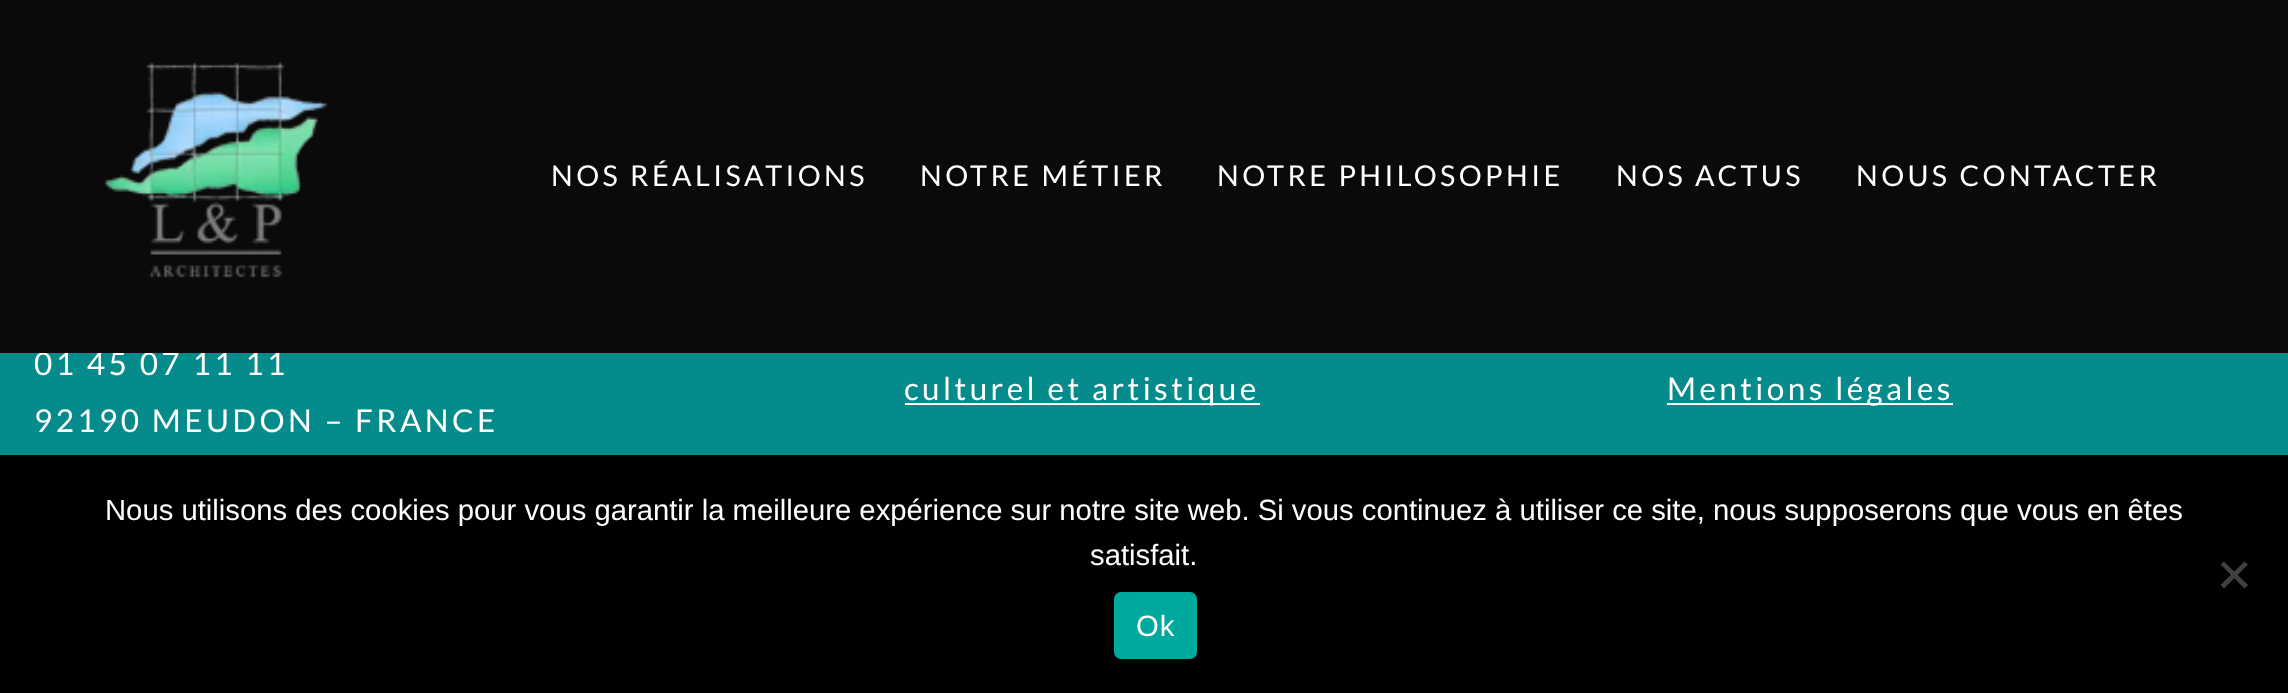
<svg xmlns="http://www.w3.org/2000/svg" width="2288" height="693">
<rect width="100%" height="100%" fill="#058b8c"/>
<text x="34" y="375" style="font-family:Lato;font-size:31.5px;letter-spacing:3.4px;fill:#fff">01 45 07 11 11</text>
<rect width="2288" height="353" fill="#0a0a0a"/>
<image x="103" y="61" width="225" height="217" href="media/1.png"/>
<text x="551" y="186" style="font-family:Lato;font-size:28.75px;letter-spacing:3.4px;fill:#fff">NOS RÉALISATIONS</text>
<text x="920" y="186" style="font-family:Lato;font-size:28.75px;letter-spacing:3.4px;fill:#fff">NOTRE MÉTIER</text>
<text x="1217" y="186" style="font-family:Lato;font-size:28.75px;letter-spacing:3.4px;fill:#fff">NOTRE PHILOSOPHIE</text>
<text x="1616" y="186" style="font-family:Lato;font-size:28.75px;letter-spacing:3.4px;fill:#fff">NOS ACTUS</text>
<text x="1856" y="186" style="font-family:Lato;font-size:28.75px;letter-spacing:3.4px;fill:#fff">NOUS CONTACTER</text>
<text x="34" y="432" style="font-family:Lato;font-size:31.5px;letter-spacing:3.4px;fill:#fff">92190 MEUDON – FRANCE</text>
<rect x="905" y="403" width="355" height="2" fill="#fff"/>
<text x="904" y="400" style="font-family:Lato;font-size:31.5px;letter-spacing:3.4px;fill:#fff">culturel et artistique</text>
<rect x="1667" y="403" width="286" height="2" fill="#fff"/>
<text x="1667" y="400" style="font-family:Lato;font-size:31.5px;letter-spacing:3.4px;fill:#fff">Mentions légales</text>
<rect y="455" width="2288" height="238" fill="#000"/>
<text x="105" y="520" style="font-family:Liberation Sans;font-size:29.25px;fill:#fff">Nous utilisons des cookies pour vous garantir la meilleure expérience sur notre site web. Si vous continuez à utiliser ce site, nous supposerons que vous en êtes</text>
<text x="1090" y="565" style="font-family:Liberation Sans;font-size:29.25px;fill:#fff">satisfait.</text>
<path d="M2244.5 561.5l3.5 3l-24 24l-3.5-3.5z" fill="#404040"/>
<path d="M2220.5 564.5l3.5-3l24 23.5l-3.5 3.5z" fill="#404040"/>
<rect x="1114" y="592" width="83" height="67" rx="7" fill="#00a99d"/>
<text x="1136" y="636" style="font-family:Liberation Sans;font-size:29.25px;letter-spacing:1px;fill:#fff">Ok</text>
</svg>
